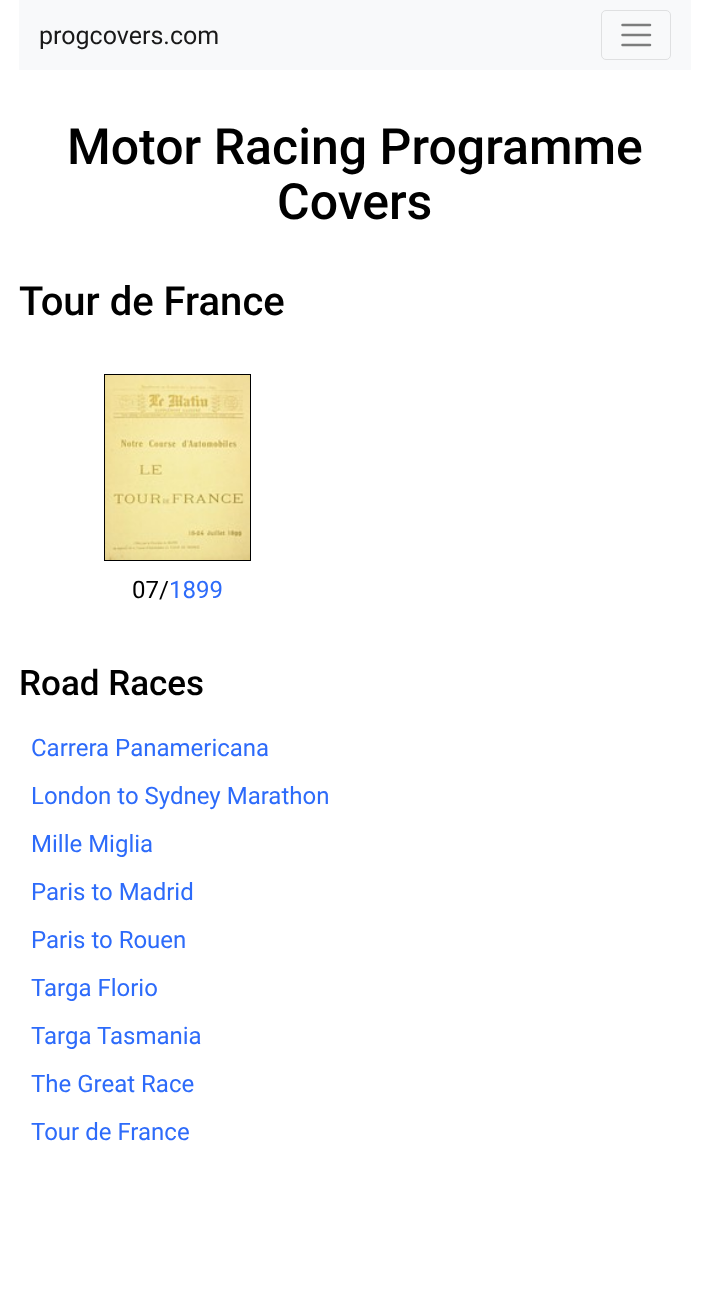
<svg xmlns="http://www.w3.org/2000/svg" width="710" height="1304">
<rect width="100%" height="100%" fill="#fff"/>
<rect x="19" width="672" height="70" fill="#f8f9fa"/>
<text x="39" y="44" style="font-family:Roboto;font-size:25px;fill:#191919">progcovers.com</text>
<rect x="601.5" y="10.5" width="69" height="49" rx="4.5" fill="none" stroke="#dfe0e1"/>
<path d="M622.5 25h27.5m-27.5 10h27.5m-27.5 10h27.5" fill="none" stroke="#7c7d7d" stroke-width="2.5" stroke-linecap="round"/>
<text x="67" y="164" style="font-family:Roboto;font-size:50px;font-weight:500;fill:#000">Motor Racing Programme</text>
<text x="277" y="219" style="font-family:Roboto;font-size:50px;font-weight:500;fill:#000">Covers</text>
<text x="19" y="315" style="font-family:Roboto;font-size:40px;font-weight:500;fill:#000">Tour de France</text>
<rect x="104.5" y="374.5" width="146" height="186" fill="none" stroke="#000"/>
<image x="105" y="375" width="145" height="185" href="media/1.png"/>
<text x="132" y="598" style="font-family:Roboto;font-size:24px;fill:#000">07/</text>
<text x="169" y="598" style="font-family:Roboto;font-size:24px;fill:#2d6bfa">1899</text>
<text x="19" y="695" style="font-family:Roboto;font-size:35px;font-weight:500;fill:#000">Road Races</text>
<text x="31" y="756" style="font-family:Roboto;font-size:24px;fill:#2d6bfa">Carrera Panamericana</text>
<text x="31" y="804" style="font-family:Roboto;font-size:24px;fill:#2d6bfa">London to Sydney Marathon</text>
<text x="31" y="852" style="font-family:Roboto;font-size:24px;fill:#2d6bfa">Mille Miglia</text>
<text x="31" y="900" style="font-family:Roboto;font-size:24px;fill:#2d6bfa">Paris to Madrid</text>
<text x="31" y="948" style="font-family:Roboto;font-size:24px;fill:#2d6bfa">Paris to Rouen</text>
<text x="31" y="996" style="font-family:Roboto;font-size:24px;fill:#2d6bfa">Targa Florio</text>
<text x="31" y="1044" style="font-family:Roboto;font-size:24px;fill:#2d6bfa">Targa Tasmania</text>
<text x="31" y="1092" style="font-family:Roboto;font-size:24px;fill:#2d6bfa">The Great Race</text>
<text x="31" y="1140" style="font-family:Roboto;font-size:24px;fill:#2d6bfa">Tour de France</text>
</svg>
